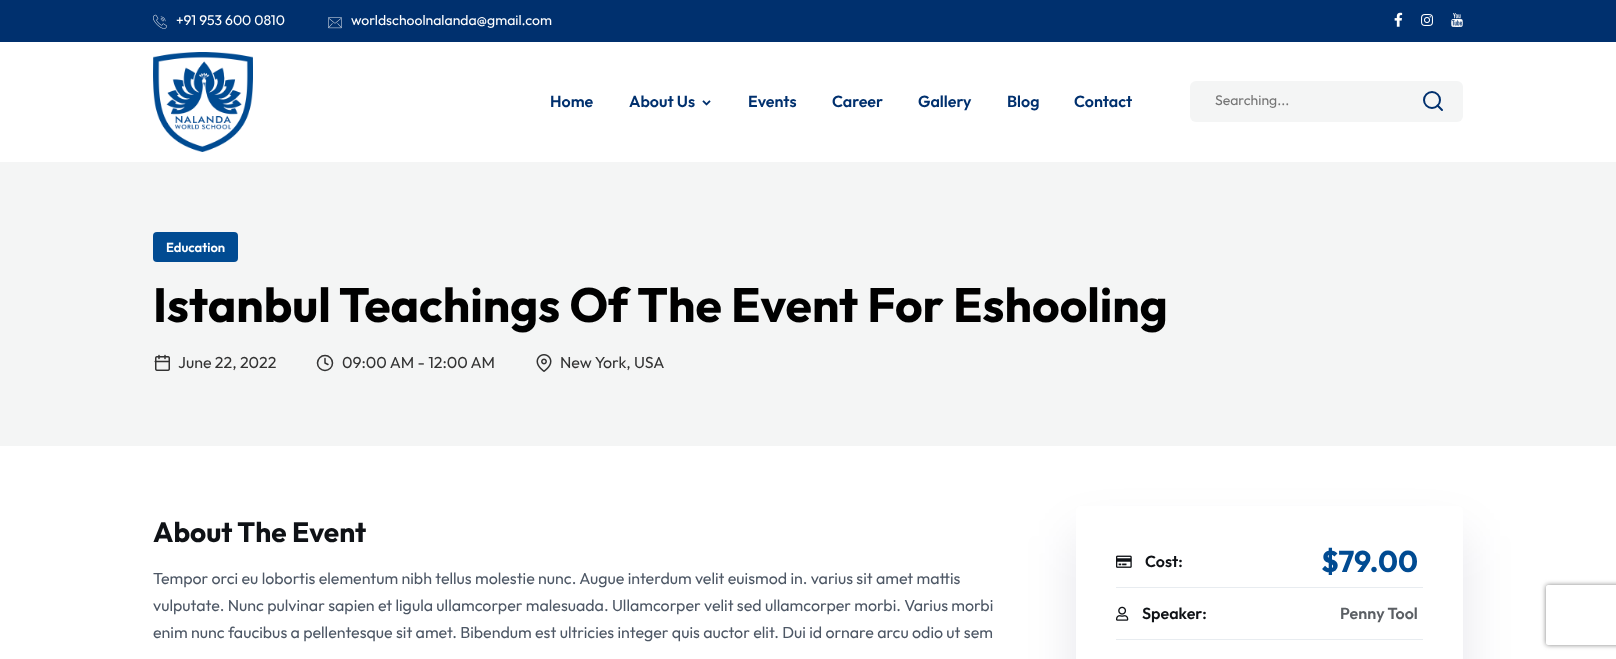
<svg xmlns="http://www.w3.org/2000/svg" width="1616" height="659">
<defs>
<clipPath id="clip1"><path d="M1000 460h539v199h-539zm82 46h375c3.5 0 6 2.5 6 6v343c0 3.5-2.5 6-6 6h-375c-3.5 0-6-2.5-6-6v-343c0-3.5 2.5-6 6-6z" clip-rule="evenodd"/></clipPath>
<clipPath id="clip2"><path d="M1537 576h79v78h-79zm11 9h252c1 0 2 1 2 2v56c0 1-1 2-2 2h-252c-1 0-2-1-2-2v-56c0-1 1-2 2-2z" clip-rule="evenodd"/></clipPath>
</defs>
<rect width="100%" height="100%" fill="#fff"/>
<rect width="1616" height="42" fill="#00306e"/>
<image x="153" y="14" width="14" height="15" href="media/1.png"/>
<text x="176" y="25" style="font-family:Outfit;font-size:14px;fill:#fff">+91 953 600 0810</text>
<image x="328" y="17" width="14" height="12" href="media/2.png"/>
<text x="351" y="25" style="font-family:Outfit;font-size:14px;fill:#fff">worldschoolnalanda@gmail.com</text>
<image x="1394" y="12" width="9" height="15" href="media/3.png"/>
<image x="1421" y="14" width="12" height="12" href="media/4.png"/>
<image x="1451" y="13" width="12" height="14" href="media/5.png"/>
<image x="153" y="52" width="100" height="100" href="media/6.png"/>
<text x="550" y="107" style="font-family:Outfit;font-size:16px;font-weight:600;fill:#00306e">Home</text>
<text x="629" y="107" style="font-family:Outfit;font-size:16px;font-weight:600;fill:#00306e">About Us</text>
<image x="702" y="100" width="9" height="6" href="media/7.png"/>
<text x="748" y="107" style="font-family:Outfit;font-size:16px;font-weight:600;fill:#00306e">Events</text>
<text x="832" y="107" style="font-family:Outfit;font-size:16px;font-weight:600;fill:#00306e">Career</text>
<text x="918" y="107" style="font-family:Outfit;font-size:16px;font-weight:600;fill:#00306e">Gallery</text>
<text x="1007" y="107" style="font-family:Outfit;font-size:16px;font-weight:600;fill:#00306e">Blog</text>
<text x="1074" y="107" style="font-family:Outfit;font-size:16px;font-weight:600;fill:#00306e">Contact</text>
<rect x="1190" y="81" width="273" height="41" rx="6" fill="#f4f5f5"/>
<text x="1215" y="105" style="font-family:Outfit;font-size:14px;fill:#757575">Searching...</text>
<circle cx="1432" cy="100" r="8" fill="none" stroke="#00306e" stroke-width="2"/>
<path d="M1442 110l-4.5-4.5" fill="none" stroke="#00306e" stroke-width="2" stroke-linecap="round" stroke-linejoin="round"/>
<rect y="162" width="1616" height="284" fill="#f4f5f5"/>
<rect x="153" y="232" width="85" height="30" rx="4" fill="#014b92"/>
<text x="166" y="252" style="font-family:Outfit;font-size:13px;font-weight:600;fill:#fff">Education</text>
<text x="153" y="322" style="font-family:Outfit;font-size:48px;font-weight:bold;fill:#000">Istanbul Teachings Of The Event For Eshooling</text>
<image x="154" y="354" width="16" height="17" href="media/8.png"/>
<text x="178" y="368" style="font-family:Outfit;font-size:16px;fill:#333">June 22, 2022</text>
<circle cx="325" cy="363" r="7.5" fill="none" stroke="#333" stroke-width="1.5"/>
<text x="342" y="368" style="font-family:Outfit;font-size:16px;fill:#333">09:00 AM - 12:00 AM</text>
<path d="M325 358.5v4.5l3 1.5" fill="none" stroke="#333" stroke-width="1.5" stroke-linecap="round" stroke-linejoin="round"/>
<image x="536" y="354" width="16" height="18" href="media/9.png"/>
<text x="560" y="368" style="font-family:Outfit;font-size:16px;fill:#333">New York, USA</text>
<text x="153" y="542" style="font-family:Outfit;font-size:28px;font-weight:bold;fill:#0f1216">About The Event</text>
<text x="153" y="584" style="font-family:Outfit;font-size:16px;fill:#4d5765">Tempor orci eu lobortis elementum nibh tellus molestie nunc. Augue interdum velit euismod in. varius sit amet mattis</text>
<text x="153" y="611" style="font-family:Outfit;font-size:16px;fill:#4d5765">vulputate. Nunc pulvinar sapien et ligula ullamcorper malesuada. Ullamcorper velit sed ullamcorper morbi. Varius morbi</text>
<text x="153" y="638" style="font-family:Outfit;font-size:16px;fill:#4d5765">enim nunc faucibus a pellentesque sit amet. Bibendum est ultricies integer quis auctor elit. Dui id ornare arcu odio ut sem</text>
<g clip-path="url(#clip1)">
<rect x="1076" y="536" width="387" height="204" rx="6" fill="#010b3c1a" filter="blur(25px)"/>
</g>
<image x="1116" y="555" width="16" height="13" href="media/10.png"/>
<text x="1145" y="567" style="font-family:Outfit;font-size:16px;font-weight:600;fill:#0f1216">Cost:</text>
<text x="1321" y="572" style="font-family:Outfit;font-size:30px;font-weight:bold;fill:#014b92">$79.00</text>
<rect x="1116" y="587" width="307" height="1" fill="#e8ecf0"/>
<image x="1116" y="606" width="13" height="15" href="media/11.png"/>
<text x="1142" y="619" style="font-family:Outfit;font-size:16px;font-weight:600;fill:#0f1216">Speaker:</text>
<text x="1340" y="619" style="font-family:Outfit;font-size:16px;font-weight:600;fill:#5b5f64">Penny Tool</text>
<rect x="1116" y="639" width="307" height="1" fill="#e8ecf0"/>
<g clip-path="url(#clip2)">
<rect x="1546" y="585" width="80" height="60" rx="2" fill="#808080" filter="blur(2.5px)"/>
</g>
</svg>
